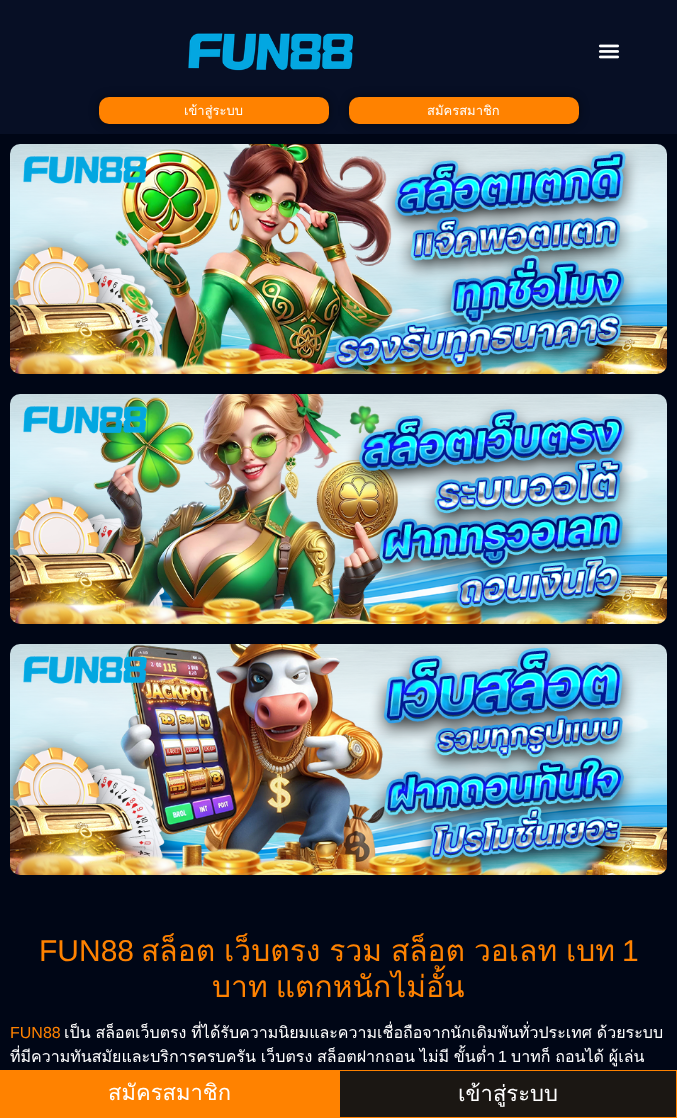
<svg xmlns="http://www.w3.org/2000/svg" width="677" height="1118">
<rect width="100%" height="100%" fill="#000616"/>
<rect width="677" height="134" fill="#070f25"/>
<image x="188" y="33" width="166" height="38" href="media/1.png"/>
<image x="598" y="44" width="22" height="15" href="media/2.png"/>
<rect x="99" y="97" width="230" height="27" rx="10" fill="#00000080" filter="blur(5px)"/>
<rect x="99" y="97" width="230" height="27" rx="10" fill="#ff8200"/>
<text x="184" y="115" style="font-family:Loma;font-size:13px;fill:#fff">เข้าสู่ระบบ</text>
<rect x="349" y="97" width="230" height="27" rx="10" fill="#00000080" filter="blur(5px)"/>
<rect x="349" y="97" width="230" height="27" rx="10" fill="#ff8200"/>
<text x="427" y="115" style="font-family:Loma;font-size:13px;fill:#fff">สมัครสมาชิก</text>
<image x="10" y="144" width="657" height="230" href="media/3.png"/>
<image x="10" y="394" width="657" height="230" href="media/4.png"/>
<image x="10" y="644" width="657" height="231" href="media/5.png"/>
<text x="39" y="961" style="font-family:Liberation Sans;font-size:30px;fill:#ff8200">FUN88</text>
<text x="141" y="961" word-spacing="-1.25" style="font-family:Loma;font-size:30px;fill:#ff8200">สล็อต เว็บตรง รวม สล็อต วอเลท เบท</text>
<text x="622" y="961" style="font-family:Liberation Sans;font-size:30px;fill:#ff8200">1</text>
<text x="212" y="997" word-spacing="-2" style="font-family:Loma;font-size:30px;fill:#ff8200">บาท แตกหนักไม่อั้น</text>
<text x="10" y="1038" style="font-family:Liberation Sans;font-size:16px;fill:#ff8200">FUN88</text>
<text x="64" y="1038" word-spacing="-0.5" style="font-family:Loma;font-size:16px;fill:#fff">เป็น สล็อตเว็บตรง ที่ได้รับความนิยมและความเชื่อถือจากนักเดิมพันทั่วประเทศ ด้วยระบบ</text>
<text x="10" y="1062" word-spacing="-0.5" style="font-family:Loma;font-size:16px;fill:#fff">ที่มีความทันสมัยและบริการครบครัน เว็บตรง สล็อตฝากถอน ไม่มี ขั้นต่ำ</text>
<text x="498" y="1062" style="font-family:Liberation Sans;font-size:16px;fill:#fff">1</text>
<text x="511" y="1062" word-spacing="-0.5" style="font-family:Loma;font-size:16px;fill:#fff">บาทก็ ถอนได้ ผู้เล่น</text>
<rect y="1070" width="339" height="48" fill="#ff8200"/>
<text x="108" y="1100" style="font-family:Loma;font-size:22px;fill:#fff">สมัครสมาชิก</text>
<rect x="339.5" y="1070.5" width="337" height="47" fill="#1b1713" stroke="#ff8200"/>
<text x="458" y="1101" style="font-family:Loma;font-size:22px;fill:#fff">เข้าสู่ระบบ</text>
</svg>
